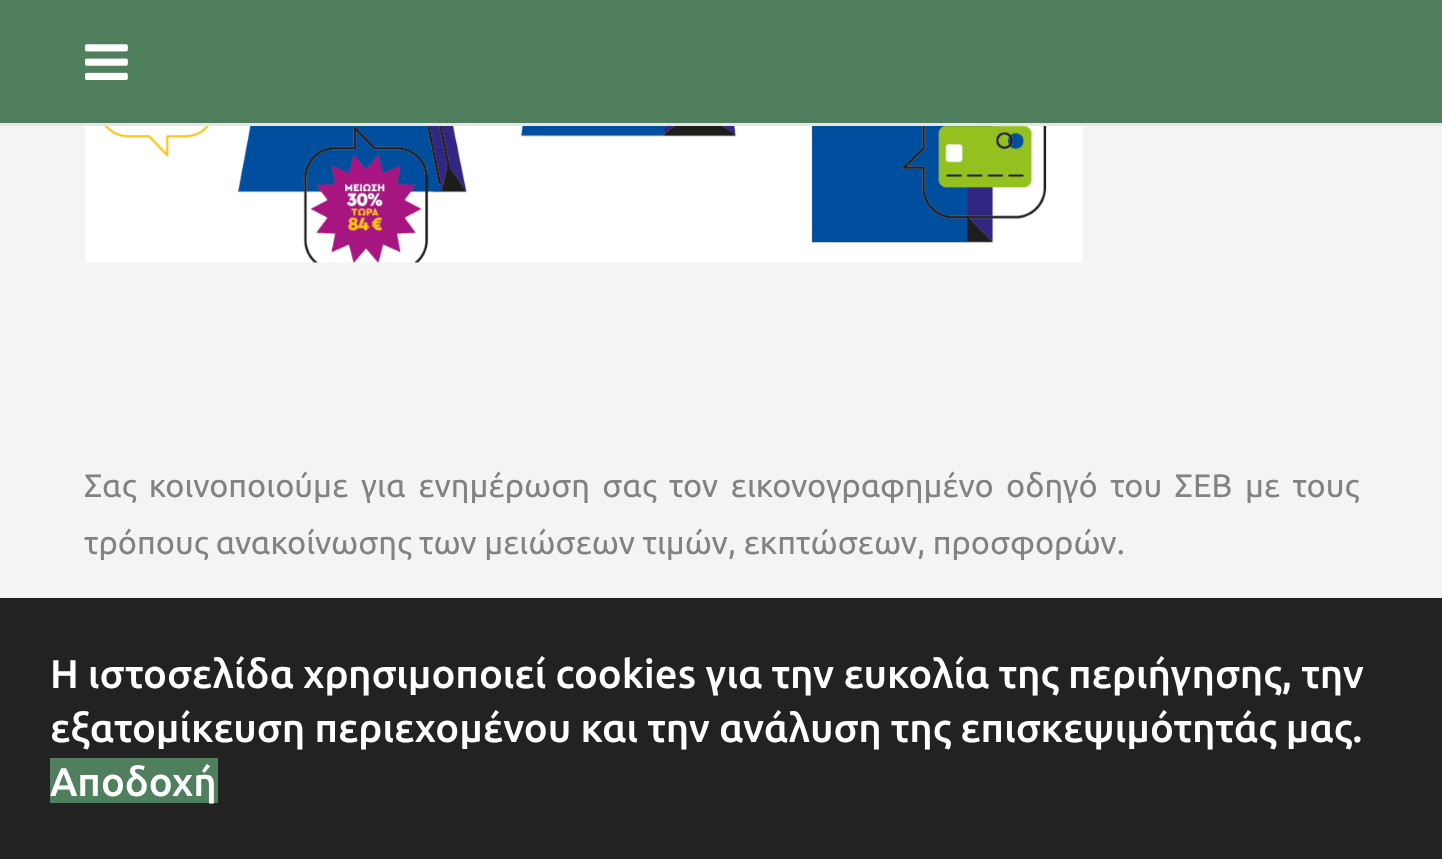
<svg xmlns="http://www.w3.org/2000/svg" width="1442" height="859">
<rect width="100%" height="100%" fill="#f4f4f4"/>
<rect width="1442" height="123" fill="#4f7f5d"/>
<rect y="123" width="1442" height="3" fill="#e6e6e6"/>
<image x="85" y="44" width="43" height="36" href="media/1.png"/>
<image x="85" y="126" width="998" height="137" href="media/2.png"/>
<text x="84" y="497" word-spacing="5" style="font-family:Ubuntu;font-size:32.5px;fill:#828282">Σας κοινοποιούμε για ενημέρωση σας τον εικονογραφημένο οδηγό του ΣΕΒ με τους</text>
<text x="84" y="554" style="font-family:Ubuntu;font-size:32.5px;fill:#828282">τρόπους ανακοίνωσης των μειώσεων τιμών, εκπτώσεων, προσφορών.</text>
<rect y="598" width="1442" height="261" fill="#222"/>
<text x="50" y="688" style="font-family:Ubuntu;font-size:40px;font-weight:500;fill:#fff">Η ιστοσελίδα χρησιμοποιεί cookies για την ευκολία της περιήγησης, την</text>
<text x="50" y="742" style="font-family:Ubuntu;font-size:40px;font-weight:500;fill:#fff">εξατομίκευση περιεχομένου και την ανάλυση της επισκεψιμότητάς μας.</text>
<rect x="50" y="758" width="168" height="45" fill="#4f7f5d"/>
<text x="50" y="796" style="font-family:Ubuntu;font-size:40px;font-weight:500;fill:#fff">Αποδοχή</text>
</svg>
